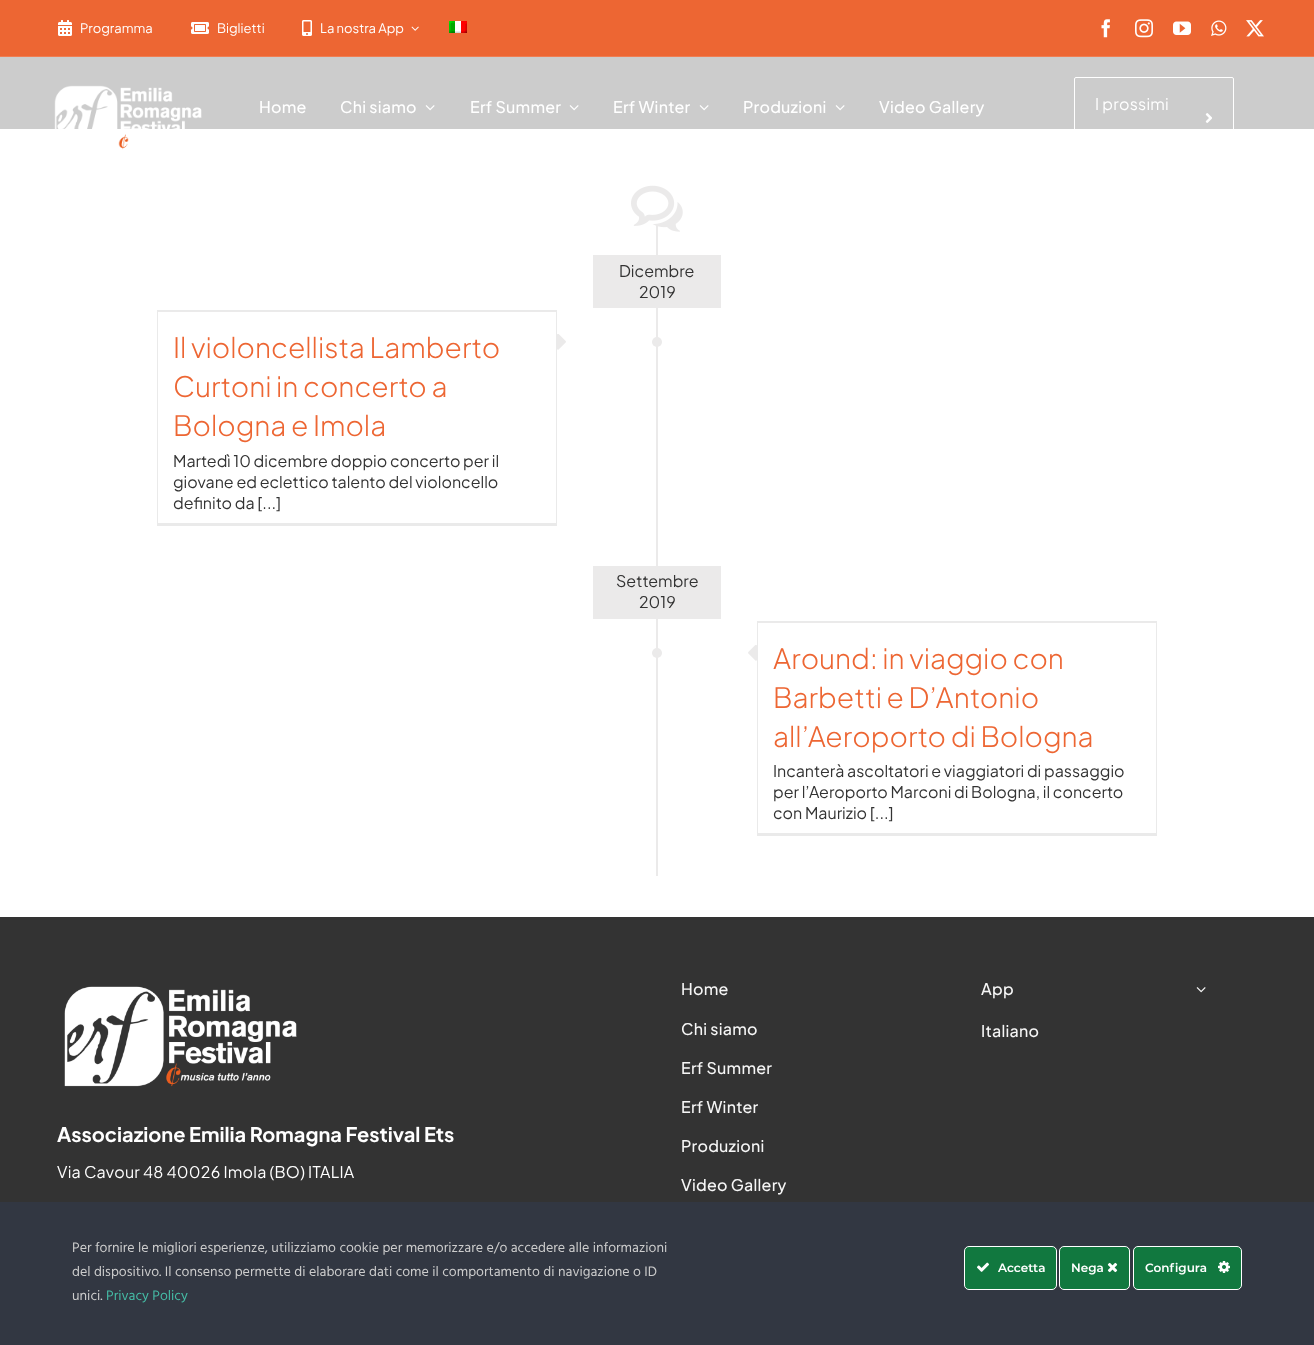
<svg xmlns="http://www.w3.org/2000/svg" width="1314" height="1345">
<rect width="100%" height="100%" fill="#fff"/>
<rect width="1314" height="56" fill="#ed6633"/>
<rect y="56" width="1314" height="1" fill="#f07d52"/>
<image x="58" y="20" width="14" height="16" href="media/1.png"/>
<text x="80" y="33" style="font-family:Plus Jakarta Sans;font-size:13px;fill:#fff">Programma</text>
<image x="191" y="22" width="18" height="12" href="media/2.png"/>
<text x="217" y="33" style="font-family:Plus Jakarta Sans;font-size:13px;fill:#fff">Biglietti</text>
<image x="302" y="20" width="10" height="16" href="media/3.png"/>
<text x="320" y="33" style="font-family:Plus Jakarta Sans;font-size:13px;fill:#fff">La nostra App</text>
<image x="411" y="26" width="8" height="5" href="media/4.png"/>
<image x="449" y="21" width="18" height="12" href="media/5.png"/>
<image x="1101" y="19" width="9" height="19" href="media/6.png"/>
<image x="1135" y="19" width="18" height="19" href="media/7.png"/>
<image x="1173" y="21" width="18" height="14" href="media/8.png"/>
<image x="1211" y="20" width="16" height="16" href="media/9.png"/>
<image x="1246" y="20" width="18" height="17" href="media/10.png"/>
<rect y="57" width="1314" height="72" fill="#ccc"/>
<image x="54" y="85" width="148" height="65" href="media/11.png"/>
<text x="259" y="113" style="font-family:Plus Jakarta Sans;font-size:16px;font-weight:500;letter-spacing:0.25px;fill:#fff">Home</text>
<text x="340" y="113" style="font-family:Plus Jakarta Sans;font-size:16px;font-weight:500;letter-spacing:0.25px;fill:#fff">Chi siamo</text>
<image x="425" y="105" width="10" height="6" href="media/12.png"/>
<text x="470" y="113" style="font-family:Plus Jakarta Sans;font-size:16px;font-weight:500;letter-spacing:0.25px;fill:#fff">Erf Summer</text>
<image x="569" y="105" width="10" height="6" href="media/12.png"/>
<text x="613" y="113" style="font-family:Plus Jakarta Sans;font-size:16px;font-weight:500;letter-spacing:0.25px;fill:#fff">Erf Winter</text>
<image x="699" y="105" width="10" height="6" href="media/12.png"/>
<text x="743" y="113" style="font-family:Plus Jakarta Sans;font-size:16px;font-weight:500;letter-spacing:0.25px;fill:#fff">Produzioni</text>
<image x="835" y="105" width="10" height="6" href="media/12.png"/>
<text x="879" y="113" style="font-family:Plus Jakarta Sans;font-size:16px;font-weight:500;letter-spacing:0.25px;fill:#fff">Video Gallery</text>
<rect x="1074.5" y="77.5" width="159" height="80" rx="1.5" fill="none" stroke="#fff"/>
<text x="1095" y="110" style="font-family:Plus Jakarta Sans;font-size:16px;letter-spacing:0.25px;fill:#fff">I prossimi</text>
<image x="1205" y="113" width="7" height="10" href="media/13.png"/>
<image x="631" y="185" width="52" height="47" href="media/14.png"/>
<rect x="656" y="225" width="2" height="651" fill="#ebeaea"/>
<rect x="593" y="255" width="128" height="53" fill="#ebeaea"/>
<text x="619" y="277" style="font-family:Plus Jakarta Sans;font-size:16px;fill:#333">Dicembre</text>
<text x="639" y="298" style="font-family:Plus Jakarta Sans;font-size:16px;fill:#333">2019</text>
<rect x="157" y="310" width="400" height="1" fill="#eaeaea"/>
<rect x="556" y="310" width="1" height="216" fill="#eaeaea"/>
<rect x="157" y="523" width="400" height="3" fill="#eaeaea"/>
<rect x="157" y="310" width="1" height="216" fill="#eaeaea"/>
<rect x="158" y="311" width="398" height="1" fill="#ebeaea"/>
<text x="173" y="358" style="font-family:Plus Jakarta Sans;font-size:28px;font-weight:300;fill:#ed6633">Il violoncellista Lamberto</text>
<text x="173" y="397" style="font-family:Plus Jakarta Sans;font-size:28px;font-weight:300;fill:#ed6633">Curtoni in concerto a</text>
<text x="173" y="436" style="font-family:Plus Jakarta Sans;font-size:28px;font-weight:300;fill:#ed6633">Bologna e Imola</text>
<text x="173" y="467" style="font-family:Plus Jakarta Sans;font-size:16px;fill:#333">Martedì 10 dicembre doppio concerto per il</text>
<text x="173" y="488" style="font-family:Plus Jakarta Sans;font-size:16px;fill:#333">giovane ed eclettico talento del violoncello</text>
<text x="173" y="509" style="font-family:Plus Jakarta Sans;font-size:16px;fill:#333">definito da [...]</text>
<image x="557" y="334" width="9" height="16" href="media/15.png"/>
<circle cx="657" cy="342" r="5" fill="#ebeaea"/>
<rect x="593" y="566" width="128" height="53" fill="#ebeaea"/>
<text x="616" y="587" style="font-family:Plus Jakarta Sans;font-size:16px;fill:#333">Settembre</text>
<text x="639" y="608" style="font-family:Plus Jakarta Sans;font-size:16px;fill:#333">2019</text>
<rect x="757" y="621" width="400" height="1" fill="#eaeaea"/>
<rect x="1156" y="621" width="1" height="215" fill="#eaeaea"/>
<rect x="757" y="833" width="400" height="3" fill="#eaeaea"/>
<rect x="757" y="621" width="1" height="215" fill="#eaeaea"/>
<rect x="758" y="622" width="398" height="1" fill="#ebeaea"/>
<circle cx="657" cy="653" r="5" fill="#ebeaea"/>
<image x="748" y="645" width="9" height="16" href="media/16.png"/>
<text x="773" y="669" style="font-family:Plus Jakarta Sans;font-size:28px;font-weight:300;fill:#ed6633">Around: in viaggio con</text>
<text x="773" y="708" style="font-family:Plus Jakarta Sans;font-size:28px;font-weight:300;fill:#ed6633">Barbetti e D’Antonio</text>
<text x="773" y="747" style="font-family:Plus Jakarta Sans;font-size:28px;font-weight:300;fill:#ed6633">all’Aeroporto di Bologna</text>
<text x="773" y="777" style="font-family:Plus Jakarta Sans;font-size:16px;fill:#333">Incanterà ascoltatori e viaggiatori di passaggio</text>
<text x="773" y="798" style="font-family:Plus Jakarta Sans;font-size:16px;fill:#333">per l’Aeroporto Marconi di Bologna, il concerto</text>
<text x="773" y="819" style="font-family:Plus Jakarta Sans;font-size:16px;fill:#333">con Maurizio [...]</text>
<rect y="917" width="1314" height="285" fill="#333"/>
<image x="64" y="986" width="233" height="101" href="media/17.png"/>
<text x="57" y="1142" style="font-family:Plus Jakarta Sans;font-size:20px;font-weight:bold;fill:#fff">Associazione Emilia Romagna Festival Ets</text>
<text x="57" y="1178" style="font-family:Plus Jakarta Sans;font-size:16px;letter-spacing:0.25px;fill:#fff">Via Cavour 48 40026 Imola (BO) ITALIA</text>
<text x="681" y="995" style="font-family:Plus Jakarta Sans;font-size:16px;font-weight:500;letter-spacing:0.25px;fill:#f6f6f6">Home</text>
<text x="681" y="1035" style="font-family:Plus Jakarta Sans;font-size:16px;font-weight:500;letter-spacing:0.25px;fill:#f6f6f6">Chi siamo</text>
<text x="681" y="1074" style="font-family:Plus Jakarta Sans;font-size:16px;font-weight:500;letter-spacing:0.25px;fill:#f6f6f6">Erf Summer</text>
<text x="681" y="1113" style="font-family:Plus Jakarta Sans;font-size:16px;font-weight:500;letter-spacing:0.25px;fill:#f6f6f6">Erf Winter</text>
<text x="681" y="1152" style="font-family:Plus Jakarta Sans;font-size:16px;font-weight:500;letter-spacing:0.25px;fill:#f6f6f6">Produzioni</text>
<text x="681" y="1191" style="font-family:Plus Jakarta Sans;font-size:16px;font-weight:500;letter-spacing:0.25px;fill:#f6f6f6">Video Gallery</text>
<text x="981" y="995" style="font-family:Plus Jakarta Sans;font-size:16px;font-weight:500;letter-spacing:0.25px;fill:#f6f6f6">App</text>
<image x="1196" y="987" width="10" height="6" href="media/18.png"/>
<text x="981" y="1037" style="font-family:Plus Jakarta Sans;font-size:16px;font-weight:500;letter-spacing:0.25px;fill:#f6f6f6">Italiano</text>
<rect y="1202" width="1314" height="143" fill="#323742"/>
<text x="72" y="1252" style="font-family:Hind;font-size:14px;fill:#ccc">Per fornire le migliori esperienze, utilizziamo cookie per memorizzare e/o accedere alle informazioni</text>
<text x="72" y="1276" style="font-family:Hind;font-size:14px;fill:#ccc">del dispositivo. Il consenso permette di elaborare dati come il comportamento di navigazione o ID</text>
<text x="72" y="1300" style="font-family:Hind;font-size:14px;fill:#ccc">unici.</text>
<text x="106" y="1300" style="font-family:Hind;font-size:14px;fill:#45bba5">Privacy Policy</text>
<rect x="964.5" y="1246.5" width="92" height="43" rx="4.5" fill="#11783f" stroke="#fff"/>
<image x="977" y="1262" width="12" height="10" href="media/19.png"/>
<text x="998" y="1272" style="font-family:Montserrat;font-size:12px;font-weight:600;fill:#fff">Accetta</text>
<rect x="1059.5" y="1246.5" width="70" height="43" rx="4.5" fill="#11783f" stroke="#fff"/>
<text x="1071" y="1272" style="font-family:Montserrat;font-size:12px;font-weight:600;fill:#fff">Nega</text>
<image x="1107" y="1262" width="11" height="11" href="media/20.png"/>
<rect x="1133.5" y="1246.5" width="108" height="43" rx="4.5" fill="#11783f" stroke="#fff"/>
<text x="1145" y="1272" style="font-family:Montserrat;font-size:12px;font-weight:600;fill:#fff">Configura</text>
<image x="1218" y="1261" width="12" height="12" href="media/21.png"/>
</svg>
